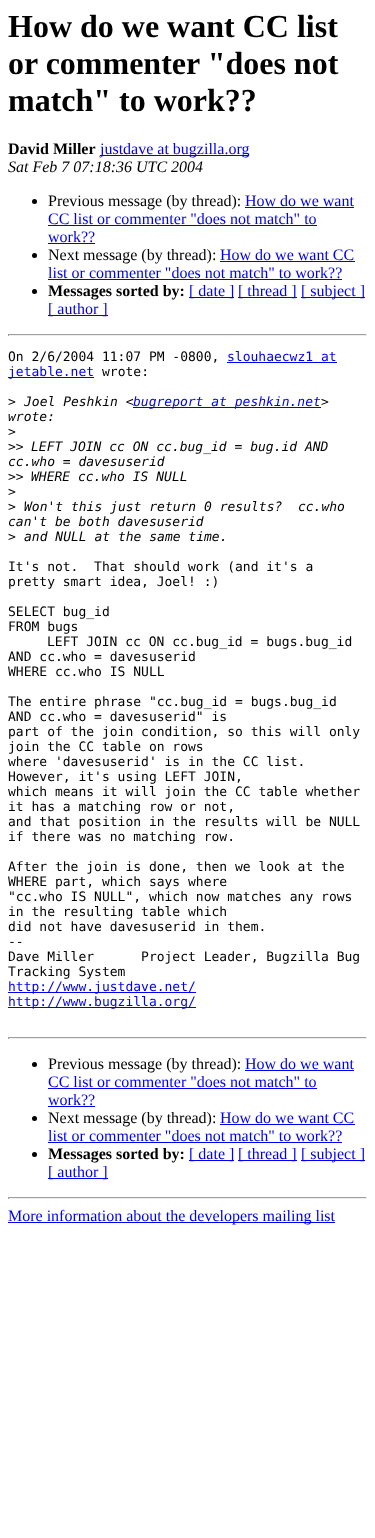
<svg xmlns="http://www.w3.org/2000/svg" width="375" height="1538">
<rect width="100%" height="100%" fill="#fff"/>
<text x="8" y="37" style="font-family:Liberation Serif;font-size:32px;font-weight:bold;fill:#000">How do we want CC list</text>
<text x="8" y="74" style="font-family:Liberation Serif;font-size:32px;font-weight:bold;fill:#000">or commenter "does not</text>
<text x="8" y="111" style="font-family:Liberation Serif;font-size:32px;font-weight:bold;fill:#000">match" to work??</text>
<text x="8" y="154" style="font-family:Liberation Serif;font-size:16px;font-weight:bold;fill:#000">David Miller</text>
<rect x="100" y="155" width="149" height="1" fill="#00e"/>
<text x="100" y="154" style="font-family:Liberation Serif;font-size:16px;fill:#00e">justdave at bugzilla.org</text>
<text x="8" y="172" style="font-family:Liberation Serif;font-size:16px;font-style:italic;fill:#000">Sat Feb 7 07:18:36 UTC 2004</text>
<circle cx="34.5" cy="201.5" r="2.5" fill="#000"/>
<text x="48" y="206" style="font-family:Liberation Serif;font-size:16px;fill:#000">Previous message (by thread):</text>
<text x="245" y="206" style="font-family:Liberation Serif;font-size:16px;fill:#00e">How do we want</text>
<rect x="245" y="207" width="109" height="1" fill="#00e"/>
<text x="48" y="224" style="font-family:Liberation Serif;font-size:16px;fill:#00e">CC list or commenter "does not match" to</text>
<rect x="48" y="225" width="269" height="1" fill="#00e"/>
<text x="48" y="242" style="font-family:Liberation Serif;font-size:16px;fill:#00e">work??</text>
<rect x="48" y="243" width="47" height="1" fill="#00e"/>
<circle cx="34.5" cy="255.5" r="2.5" fill="#000"/>
<text x="48" y="260" style="font-family:Liberation Serif;font-size:16px;fill:#000">Next message (by thread):</text>
<text x="220" y="260" style="font-family:Liberation Serif;font-size:16px;fill:#00e">How do we want CC</text>
<rect x="220" y="261" width="135" height="1" fill="#00e"/>
<text x="48" y="278" style="font-family:Liberation Serif;font-size:16px;fill:#00e">list or commenter "does not match" to work??</text>
<rect x="48" y="279" width="294" height="1" fill="#00e"/>
<circle cx="34.5" cy="291.5" r="2.5" fill="#000"/>
<text x="48" y="296" style="font-family:Liberation Serif;font-size:16px;font-weight:bold;fill:#000">Messages sorted by:</text>
<rect x="189" y="297" width="45" height="1" fill="#00e"/>
<text x="189" y="296" style="font-family:Liberation Serif;font-size:16px;fill:#00e">[ date ]</text>
<rect x="238" y="297" width="59" height="1" fill="#00e"/>
<text x="238" y="296" style="font-family:Liberation Serif;font-size:16px;fill:#00e">[ thread ]</text>
<rect x="301" y="297" width="64" height="1" fill="#00e"/>
<text x="301" y="296" style="font-family:Liberation Serif;font-size:16px;fill:#00e">[ subject ]</text>
<rect x="48" y="315" width="60" height="1" fill="#00e"/>
<text x="48" y="314" style="font-family:Liberation Serif;font-size:16px;fill:#00e">[ author ]</text>
<rect x="8" y="334" width="359" height="1" fill="#9f9f9f"/>
<rect x="366" y="334" width="1" height="2" fill="#eee"/>
<rect x="8" y="335" width="359" height="1" fill="#eee"/>
<rect x="8" y="334" width="1" height="2" fill="#9f9f9f"/>
<text x="8" y="361" style="font-family:DejaVu Sans Mono;font-size:13px;fill:#000">On 2/6/2004 11:07 PM -0800,</text>
<text x="227" y="361" style="font-family:DejaVu Sans Mono;font-size:13px;fill:#00e">slouhaecwz1 at</text>
<rect x="227" y="362" width="110" height="1" fill="#00e"/>
<rect x="8" y="377" width="86" height="1" fill="#00e"/>
<text x="8" y="376" style="font-family:DejaVu Sans Mono;font-size:13px;fill:#00e">jetable.net</text>
<text x="102" y="376" style="font-family:DejaVu Sans Mono;font-size:13px;fill:#000">wrote:</text>
<text x="8" y="406" style="font-family:DejaVu Sans Mono;font-size:13px;fill:#000">&gt;</text>
<text x="24" y="406" style="font-family:DejaVu Sans Mono;font-size:13px;font-style:italic;fill:#000">Joel Peshkin &lt;</text>
<rect x="133" y="407" width="188" height="1" fill="#00e"/>
<text x="133" y="406" style="font-family:DejaVu Sans Mono;font-size:13px;font-style:italic;fill:#00e">bugreport at peshkin.net</text>
<text x="321" y="406" style="font-family:DejaVu Sans Mono;font-size:13px;font-style:italic;fill:#000">&gt;</text>
<text x="8" y="421" style="font-family:DejaVu Sans Mono;font-size:13px;font-style:italic;fill:#000">wrote:</text>
<text x="8" y="436" style="font-family:DejaVu Sans Mono;font-size:13px;fill:#000">&gt;</text>
<text x="8" y="451" style="font-family:DejaVu Sans Mono;font-size:13px;fill:#000">&gt;&gt;</text>
<text x="31" y="451" style="font-family:DejaVu Sans Mono;font-size:13px;font-style:italic;fill:#000">LEFT JOIN cc ON cc.bug_id = bug.id AND</text>
<text x="8" y="466" style="font-family:DejaVu Sans Mono;font-size:13px;font-style:italic;fill:#000">cc.who = davesuserid</text>
<text x="8" y="481" style="font-family:DejaVu Sans Mono;font-size:13px;fill:#000">&gt;&gt;</text>
<text x="31" y="481" style="font-family:DejaVu Sans Mono;font-size:13px;font-style:italic;fill:#000">WHERE cc.who IS NULL</text>
<text x="8" y="496" style="font-family:DejaVu Sans Mono;font-size:13px;fill:#000">&gt;</text>
<text x="8" y="511" style="font-family:DejaVu Sans Mono;font-size:13px;fill:#000">&gt;</text>
<text x="24" y="511" style="font-family:DejaVu Sans Mono;font-size:13px;font-style:italic;fill:#000" xml:space="preserve">Won't this just return 0 results?  cc.who</text>
<text x="8" y="526" style="font-family:DejaVu Sans Mono;font-size:13px;font-style:italic;fill:#000">can't be both davesuserid</text>
<text x="8" y="541" style="font-family:DejaVu Sans Mono;font-size:13px;fill:#000">&gt;</text>
<text x="24" y="541" style="font-family:DejaVu Sans Mono;font-size:13px;font-style:italic;fill:#000">and NULL at the same time.</text>
<text x="8" y="571" style="font-family:DejaVu Sans Mono;font-size:13px;fill:#000" xml:space="preserve">It's not.  That should work (and it's a</text>
<text x="8" y="586" style="font-family:DejaVu Sans Mono;font-size:13px;fill:#000">pretty smart idea, Joel! :)</text>
<text x="8" y="616" style="font-family:DejaVu Sans Mono;font-size:13px;fill:#000">SELECT bug_id</text>
<text x="8" y="631" style="font-family:DejaVu Sans Mono;font-size:13px;fill:#000">FROM bugs</text>
<text x="47" y="646" style="font-family:DejaVu Sans Mono;font-size:13px;fill:#000">LEFT JOIN cc ON cc.bug_id = bugs.bug_id</text>
<text x="8" y="661" style="font-family:DejaVu Sans Mono;font-size:13px;fill:#000">AND cc.who = davesuserid</text>
<text x="8" y="676" style="font-family:DejaVu Sans Mono;font-size:13px;fill:#000">WHERE cc.who IS NULL</text>
<text x="8" y="706" style="font-family:DejaVu Sans Mono;font-size:13px;fill:#000">The entire phrase "cc.bug_id = bugs.bug_id</text>
<text x="8" y="721" style="font-family:DejaVu Sans Mono;font-size:13px;fill:#000">AND cc.who = davesuserid" is</text>
<text x="8" y="736" style="font-family:DejaVu Sans Mono;font-size:13px;fill:#000">part of the join condition, so this will only</text>
<text x="8" y="751" style="font-family:DejaVu Sans Mono;font-size:13px;fill:#000">join the CC table on rows</text>
<text x="8" y="766" style="font-family:DejaVu Sans Mono;font-size:13px;fill:#000">where 'davesuserid' is in the CC list.</text>
<text x="8" y="781" style="font-family:DejaVu Sans Mono;font-size:13px;fill:#000">However, it's using LEFT JOIN,</text>
<text x="8" y="796" style="font-family:DejaVu Sans Mono;font-size:13px;fill:#000">which means it will join the CC table whether</text>
<text x="8" y="811" style="font-family:DejaVu Sans Mono;font-size:13px;fill:#000">it has a matching row or not,</text>
<text x="8" y="826" style="font-family:DejaVu Sans Mono;font-size:13px;fill:#000">and that position in the results will be NULL</text>
<text x="8" y="841" style="font-family:DejaVu Sans Mono;font-size:13px;fill:#000">if there was no matching row.</text>
<text x="8" y="871" style="font-family:DejaVu Sans Mono;font-size:13px;fill:#000">After the join is done, then we look at the</text>
<text x="8" y="886" style="font-family:DejaVu Sans Mono;font-size:13px;fill:#000">WHERE part, which says where</text>
<text x="8" y="901" style="font-family:DejaVu Sans Mono;font-size:13px;fill:#000">"cc.who IS NULL", which now matches any rows</text>
<text x="8" y="916" style="font-family:DejaVu Sans Mono;font-size:13px;fill:#000">in the resulting table which</text>
<text x="8" y="931" style="font-family:DejaVu Sans Mono;font-size:13px;fill:#000">did not have davesuserid in them.</text>
<text x="8" y="946" style="font-family:DejaVu Sans Mono;font-size:13px;fill:#000">--</text>
<text x="8" y="961" style="font-family:DejaVu Sans Mono;font-size:13px;fill:#000" xml:space="preserve">Dave Miller      Project Leader, Bugzilla Bug</text>
<text x="8" y="976" style="font-family:DejaVu Sans Mono;font-size:13px;fill:#000">Tracking System</text>
<rect x="8" y="992" width="188" height="1" fill="#00e"/>
<text x="8" y="991" style="font-family:DejaVu Sans Mono;font-size:13px;fill:#00e">http://www.justdave.net/</text>
<rect x="8" y="1007" width="188" height="1" fill="#00e"/>
<text x="8" y="1006" style="font-family:DejaVu Sans Mono;font-size:13px;fill:#00e">http://www.bugzilla.org/</text>
<rect x="8" y="1037" width="359" height="1" fill="#9f9f9f"/>
<rect x="366" y="1037" width="1" height="2" fill="#eee"/>
<rect x="8" y="1038" width="359" height="1" fill="#eee"/>
<rect x="8" y="1037" width="1" height="2" fill="#9f9f9f"/>
<circle cx="34.5" cy="1064.5" r="2.5" fill="#000"/>
<text x="48" y="1069" style="font-family:Liberation Serif;font-size:16px;fill:#000">Previous message (by thread):</text>
<text x="245" y="1069" style="font-family:Liberation Serif;font-size:16px;fill:#00e">How do we want</text>
<rect x="245" y="1070" width="109" height="1" fill="#00e"/>
<text x="48" y="1087" style="font-family:Liberation Serif;font-size:16px;fill:#00e">CC list or commenter "does not match" to</text>
<rect x="48" y="1088" width="269" height="1" fill="#00e"/>
<text x="48" y="1105" style="font-family:Liberation Serif;font-size:16px;fill:#00e">work??</text>
<rect x="48" y="1106" width="47" height="1" fill="#00e"/>
<circle cx="34.5" cy="1118.5" r="2.5" fill="#000"/>
<text x="48" y="1123" style="font-family:Liberation Serif;font-size:16px;fill:#000">Next message (by thread):</text>
<text x="220" y="1123" style="font-family:Liberation Serif;font-size:16px;fill:#00e">How do we want CC</text>
<rect x="220" y="1124" width="135" height="1" fill="#00e"/>
<text x="48" y="1141" style="font-family:Liberation Serif;font-size:16px;fill:#00e">list or commenter "does not match" to work??</text>
<rect x="48" y="1142" width="294" height="1" fill="#00e"/>
<circle cx="34.5" cy="1154.5" r="2.5" fill="#000"/>
<text x="48" y="1159" style="font-family:Liberation Serif;font-size:16px;font-weight:bold;fill:#000">Messages sorted by:</text>
<rect x="189" y="1160" width="45" height="1" fill="#00e"/>
<text x="189" y="1159" style="font-family:Liberation Serif;font-size:16px;fill:#00e">[ date ]</text>
<rect x="238" y="1160" width="59" height="1" fill="#00e"/>
<text x="238" y="1159" style="font-family:Liberation Serif;font-size:16px;fill:#00e">[ thread ]</text>
<rect x="301" y="1160" width="64" height="1" fill="#00e"/>
<text x="301" y="1159" style="font-family:Liberation Serif;font-size:16px;fill:#00e">[ subject ]</text>
<rect x="48" y="1178" width="60" height="1" fill="#00e"/>
<text x="48" y="1177" style="font-family:Liberation Serif;font-size:16px;fill:#00e">[ author ]</text>
<rect x="8" y="1197" width="359" height="1" fill="#9f9f9f"/>
<rect x="366" y="1197" width="1" height="2" fill="#eee"/>
<rect x="8" y="1198" width="359" height="1" fill="#eee"/>
<rect x="8" y="1197" width="1" height="2" fill="#9f9f9f"/>
<rect x="8" y="1222" width="327" height="1" fill="#00e"/>
<text x="8" y="1221" style="font-family:Liberation Serif;font-size:16px;fill:#00e">More information about the developers mailing list</text>
</svg>
